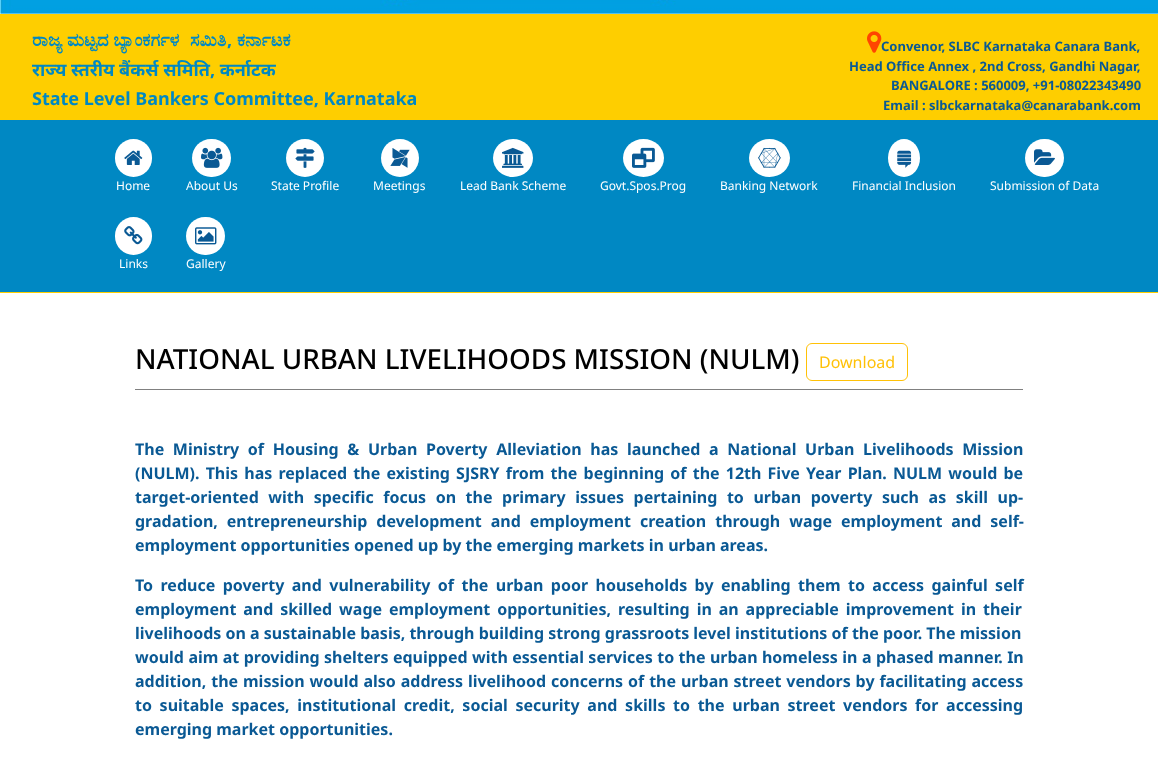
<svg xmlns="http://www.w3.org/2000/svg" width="1158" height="779">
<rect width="100%" height="100%" fill="#fff"/>
<image x="0" y="0" width="1158" height="14" href="media/1.png"/>
<rect y="14" width="1158" height="106" fill="#fece00"/>
<text x="32" y="46" style="font-family:FreeSerif;font-size:18px;font-weight:bold;fill:#0088c3">ರಾಜ್ಯ ಮಟ್ಟದ ಬ್ಯಾಂಕರ್ಗಳ</text>
<text x="190" y="46" style="font-family:FreeSerif;font-size:18px;font-weight:bold;fill:#0088c3">ಸಮಿತಿ</text>
<text x="227" y="46" style="font-family:Noto Sans;font-size:18px;font-weight:bold;fill:#0088c3">,</text>
<text x="237" y="46" style="font-family:FreeSerif;font-size:18px;font-weight:bold;fill:#0088c3">ಕರ್ನಾಟಕ</text>
<text x="32" y="76" style="font-family:Noto Sans;font-size:18px;font-weight:bold;fill:#0088c3">राज्य स्तरीय बैंकर्स समिति, कर्नाटक</text>
<text x="32" y="105" style="font-family:Noto Sans;font-size:18px;font-weight:bold;fill:#0088c3">State Level Bankers Committee, Karnataka</text>
<image x="867" y="31" width="15" height="22" href="media/2.png"/>
<text x="881" y="51" style="font-family:Noto Sans;font-size:13px;font-weight:bold;fill:#0a5994">Convenor, SLBC Karnataka Canara Bank,</text>
<text x="849" y="71" style="font-family:Noto Sans;font-size:13px;font-weight:bold;fill:#0a5994">Head Office Annex , 2nd Cross, Gandhi Nagar,</text>
<text x="891" y="90" style="font-family:Noto Sans;font-size:13px;font-weight:bold;fill:#0a5994">BANGALORE : 560009, +91-08022343490</text>
<text x="883" y="110" style="font-family:Noto Sans;font-size:13px;font-weight:bold;fill:#0a5994">Email : slbckarnataka@canarabank.com</text>
<rect y="120" width="1158" height="172" fill="#0088c3"/>
<rect x="115" y="139" width="37" height="38" rx="18.5" fill="#fff"/>
<image x="124" y="150" width="19" height="15" href="media/3.png"/>
<text x="116" y="190" style="font-family:Noto Sans;font-size:12px;fill:#fff">Home</text>
<rect x="192" y="139" width="39" height="38" rx="19" fill="#fff"/>
<image x="201" y="147" width="22" height="21" href="media/4.png"/>
<text x="186" y="190" style="font-family:Noto Sans;font-size:12px;fill:#fff">About Us</text>
<circle cx="305" cy="158" r="19" fill="#fff"/>
<image x="295" y="147" width="20" height="21" href="media/5.png"/>
<text x="271" y="190" style="font-family:Noto Sans;font-size:12px;fill:#fff">State Profile</text>
<circle cx="400" cy="158" r="19" fill="#fff"/>
<image x="390" y="148" width="20" height="20" href="media/6.png"/>
<text x="373" y="190" style="font-family:Noto Sans;font-size:12px;fill:#fff">Meetings</text>
<ellipse cx="513" cy="158" rx="20" ry="19" fill="#fff"/>
<image x="502" y="147" width="22" height="21" href="media/7.png"/>
<text x="460" y="190" style="font-family:Noto Sans;font-size:12px;fill:#fff">Lead Bank Scheme</text>
<ellipse cx="643.5" cy="158" rx="20.5" ry="19" fill="#fff"/>
<image x="632" y="147" width="23" height="21" href="media/8.png"/>
<text x="600" y="190" style="font-family:Noto Sans;font-size:12px;fill:#fff">Govt.Spos.Prog</text>
<ellipse cx="769.5" cy="158" rx="20.5" ry="19" fill="#fff"/>
<image x="758" y="147" width="23" height="21" href="media/9.png"/>
<text x="720" y="190" style="font-family:Noto Sans;font-size:12px;fill:#fff">Banking Network</text>
<ellipse cx="904" cy="158" rx="16" ry="19" fill="#fff"/>
<image x="897" y="150" width="15" height="18" href="media/10.png"/>
<text x="852" y="190" style="font-family:Noto Sans;font-size:12px;fill:#fff">Financial Inclusion</text>
<rect x="1025" y="139" width="39" height="38" rx="19" fill="#fff"/>
<image x="1034" y="149" width="21" height="16" href="media/11.png"/>
<text x="990" y="190" style="font-family:Noto Sans;font-size:12px;fill:#fff">Submission of Data</text>
<rect x="115" y="217" width="37" height="38" rx="18.5" fill="#fff"/>
<image x="124" y="226" width="19" height="19" href="media/12.png"/>
<text x="119" y="268" style="font-family:Noto Sans;font-size:12px;fill:#fff">Links</text>
<rect x="186" y="217" width="39" height="38" rx="19" fill="#fff"/>
<image x="195" y="227" width="22" height="18" href="media/13.png"/>
<text x="186" y="268" style="font-family:Noto Sans;font-size:12px;fill:#fff">Gallery</text>
<rect y="292" width="1158" height="1" fill="#fece00"/>
<rect x="135" y="389" width="888" height="1" fill="#808080"/>
<text x="135" y="369" style="font-family:Noto Sans;font-size:27.75px;font-weight:500;fill:#000">NATIONAL URBAN LIVELIHOODS MISSION (NULM)</text>
<rect x="806.5" y="343.5" width="101" height="37" rx="5.5" fill="none" stroke="#ffc107"/>
<text x="819" y="368" style="font-family:Noto Sans;font-size:16px;fill:#ffc107">Download</text>
<text x="135" y="455" word-spacing="4.5" style="font-family:Noto Sans;font-size:16px;font-weight:bold;fill:#0a5994">The Ministry of Housing &amp; Urban Poverty Alleviation has launched a National Urban Livelihoods Mission</text>
<text x="135" y="479" word-spacing="2" style="font-family:Noto Sans;font-size:16px;font-weight:bold;fill:#0a5994">(NULM). This has replaced the existing SJSRY from the beginning of the 12th Five Year Plan. NULM would be</text>
<text x="135" y="503" word-spacing="5.4" style="font-family:Noto Sans;font-size:16px;font-weight:bold;fill:#0a5994">target-oriented with specific focus on the primary issues pertaining to urban poverty such as skill up-</text>
<text x="135" y="527" word-spacing="4.75" style="font-family:Noto Sans;font-size:16px;font-weight:bold;fill:#0a5994">gradation, entrepreneurship development and employment creation through wage employment and self-</text>
<text x="135" y="551" style="font-family:Noto Sans;font-size:16px;font-weight:bold;fill:#0a5994">employment opportunities opened up by the emerging markets in urban areas.</text>
<text x="135" y="591" word-spacing="3.25" style="font-family:Noto Sans;font-size:16px;font-weight:bold;fill:#0a5994">To reduce poverty and vulnerability of the urban poor households by enabling them to access gainful self</text>
<text x="135" y="615" word-spacing="2.75" style="font-family:Noto Sans;font-size:16px;font-weight:bold;fill:#0a5994">employment and skilled wage employment opportunities, resulting in an appreciable improvement in their</text>
<text x="135" y="639" style="font-family:Noto Sans;font-size:16px;font-weight:bold;fill:#0a5994">livelihoods on a sustainable basis, through building strong grassroots level institutions of the poor. The mission</text>
<text x="135" y="663" word-spacing="0.25" style="font-family:Noto Sans;font-size:16px;font-weight:bold;fill:#0a5994">would aim at providing shelters equipped with essential services to the urban homeless in a phased manner. In</text>
<text x="135" y="687" word-spacing="0.75" style="font-family:Noto Sans;font-size:16px;font-weight:bold;fill:#0a5994">addition, the mission would also address livelihood concerns of the urban street vendors by facilitating access</text>
<text x="135" y="711" word-spacing="3.5" style="font-family:Noto Sans;font-size:16px;font-weight:bold;fill:#0a5994">to suitable spaces, institutional credit, social security and skills to the urban street vendors for accessing</text>
<text x="135" y="735" style="font-family:Noto Sans;font-size:16px;font-weight:bold;fill:#0a5994">emerging market opportunities.</text>
</svg>
